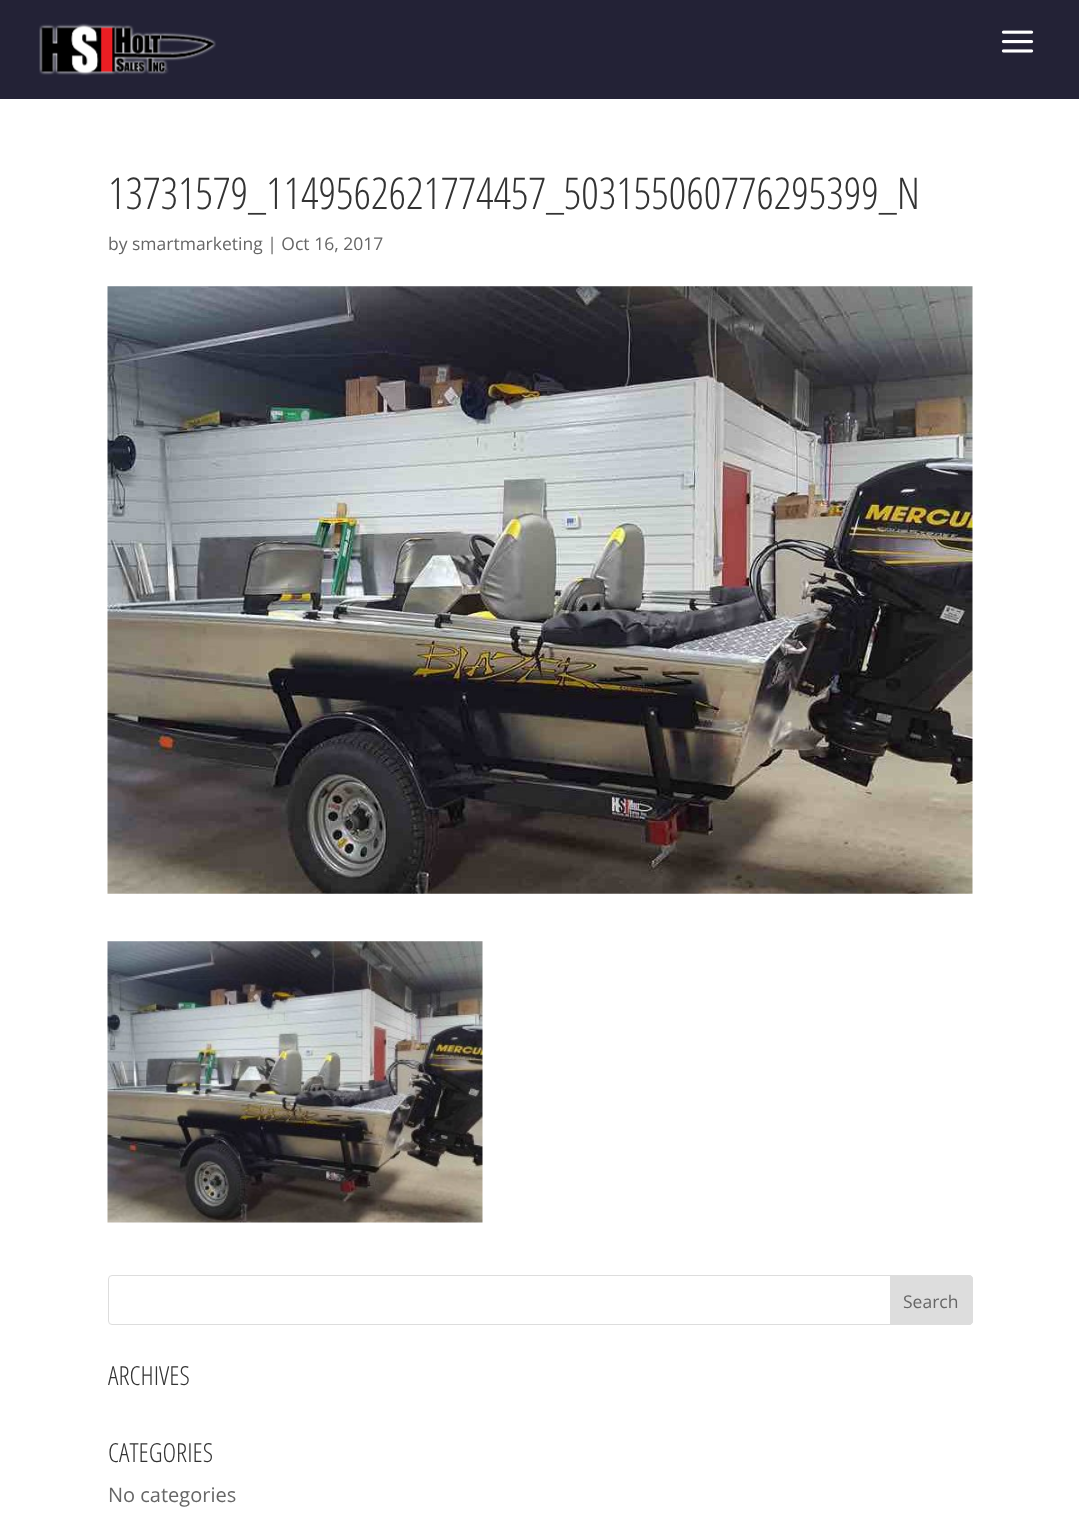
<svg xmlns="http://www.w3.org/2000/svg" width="1079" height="1533">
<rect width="100%" height="100%" fill="#fff"/>
<rect width="1079" height="99" fill="#232236"/>
<image x="39" y="23" width="177" height="53" href="media/1.png"/>
<image x="1001" y="30" width="33" height="23" href="media/2.png"/>
<text x="108" y="209" style="font-family:Open Sans Condensed;font-size:43.75px;font-weight:300;fill:#333">13731579_1149562621774457_503155060776295399_N</text>
<text x="108" y="250" style="font-family:Open Sans;font-size:17.5px;fill:#666">by smartmarketing | Oct 16, 2017</text>
<image x="107" y="286" width="866" height="608" href="media/3.png"/>
<image x="107" y="941" width="376" height="282" href="media/4.png"/>
<rect x="108.5" y="1275.5" width="864" height="49" rx="3.5" fill="none" stroke="#ddd"/>
<path d="M890.5 1275.5h78.5c2 0 3.5 1.5 3.5 3.5v42c0 2-1.5 3.5-3.5 3.5h-78.5z" fill="#ddd" stroke="#ddd"/>
<text x="903" y="1308" style="font-family:Open Sans;font-size:17.5px;fill:#666">Search</text>
<text x="108" y="1385" style="font-family:Open Sans Condensed;font-size:26.25px;font-weight:300;fill:#333">ARCHIVES</text>
<text x="108" y="1462" style="font-family:Open Sans Condensed;font-size:26.25px;font-weight:300;fill:#333">CATEGORIES</text>
<text x="108" y="1502" style="font-family:Open Sans;font-size:20px;fill:#666">No categories</text>
</svg>
